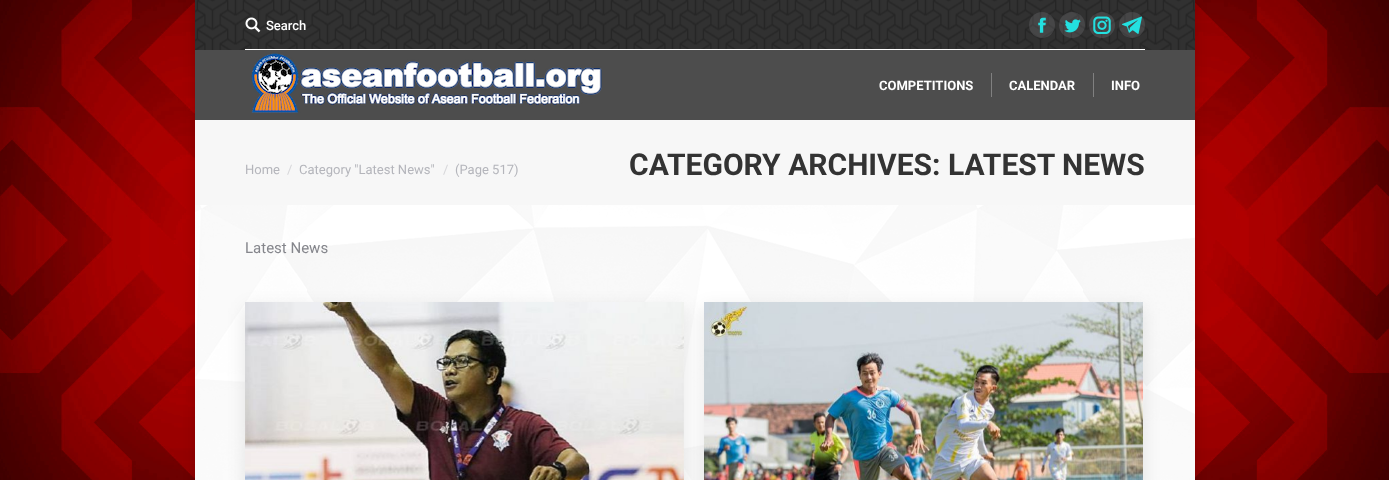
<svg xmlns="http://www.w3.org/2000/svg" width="1389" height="480">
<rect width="100%" height="100%" fill="#fff"/>
<image x="0" y="0" width="1389" height="480" href="media/1.png"/>
<rect x="195" width="1000" height="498" fill="#00000026" filter="blur(6px)"/>
<rect x="195" y="205" width="1000" height="275" fill="#fff"/>
<image x="195" y="205" width="1000" height="275" href="media/2.png"/>
<rect x="195" y="50" width="1000" height="70" fill="#4d4d4d"/>
<image x="195" y="0" width="1000" height="50" href="media/3.png"/>
<image x="245" y="17" width="16" height="16" href="media/4.png"/>
<text x="266" y="30" style="font-family:Roboto;font-size:13px;font-weight:500;fill:#fff">Search</text>
<circle cx="1042" cy="25" r="13" fill="#a3a4aa30"/>
<image x="1038" y="17" width="8" height="16" href="media/5.png"/>
<circle cx="1072" cy="25" r="13" fill="#a3a4aa30"/>
<image x="1064" y="19" width="17" height="14" href="media/6.png"/>
<circle cx="1102" cy="25" r="13" fill="#a3a4aa30"/>
<image x="1093" y="16" width="18" height="18" href="media/7.png"/>
<circle cx="1132" cy="25" r="13" fill="#a3a4aa30"/>
<image x="1122" y="16" width="20" height="18" href="media/8.png"/>
<rect x="245" y="49" width="900" height="1" fill="#fff"/>
<image x="251" y="53" width="351" height="60" href="media/9.png"/>
<text x="879" y="90" style="font-family:Roboto;font-size:13px;font-weight:bold;fill:#fff">COMPETITIONS</text>
<rect x="991" y="73" width="1" height="24" fill="#808080"/>
<text x="1009" y="90" style="font-family:Roboto;font-size:13px;font-weight:bold;fill:#fff">CALENDAR</text>
<rect x="1093" y="73" width="1" height="24" fill="#808080"/>
<text x="1111" y="90" style="font-family:Roboto;font-size:13px;font-weight:bold;fill:#fff">INFO</text>
<rect x="195" y="120" width="1000" height="85" fill="#f7f7f7"/>
<text x="245" y="174" style="font-family:Roboto;font-size:13px;fill:#b4b5bb">Home</text>
<text x="287" y="174" style="font-family:Roboto;font-size:13px;fill:#d6d6d9">/</text>
<text x="299" y="174" style="font-family:Roboto;font-size:13px;fill:#b4b5bb">Category "Latest News"</text>
<text x="443" y="174" style="font-family:Roboto;font-size:13px;fill:#d6d6d9">/</text>
<text x="455" y="174" style="font-family:Roboto;font-size:13px;fill:#b4b5bb">(Page 517)</text>
<text x="629" y="175" style="font-family:Roboto;font-size:30px;font-weight:bold;fill:#333">CATEGORY ARCHIVES: LATEST NEWS</text>
<text x="245" y="253" style="font-family:Roboto;font-size:15px;fill:#85868c">Latest News</text>
<rect x="245" y="308" width="439" height="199" fill="#0000001a" filter="blur(9px)"/>
<image x="245" y="302" width="439" height="178" href="media/10.png"/>
<rect x="704" y="308" width="439" height="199" fill="#0000001a" filter="blur(9px)"/>
<image x="704" y="302" width="439" height="178" href="media/11.png"/>
</svg>
